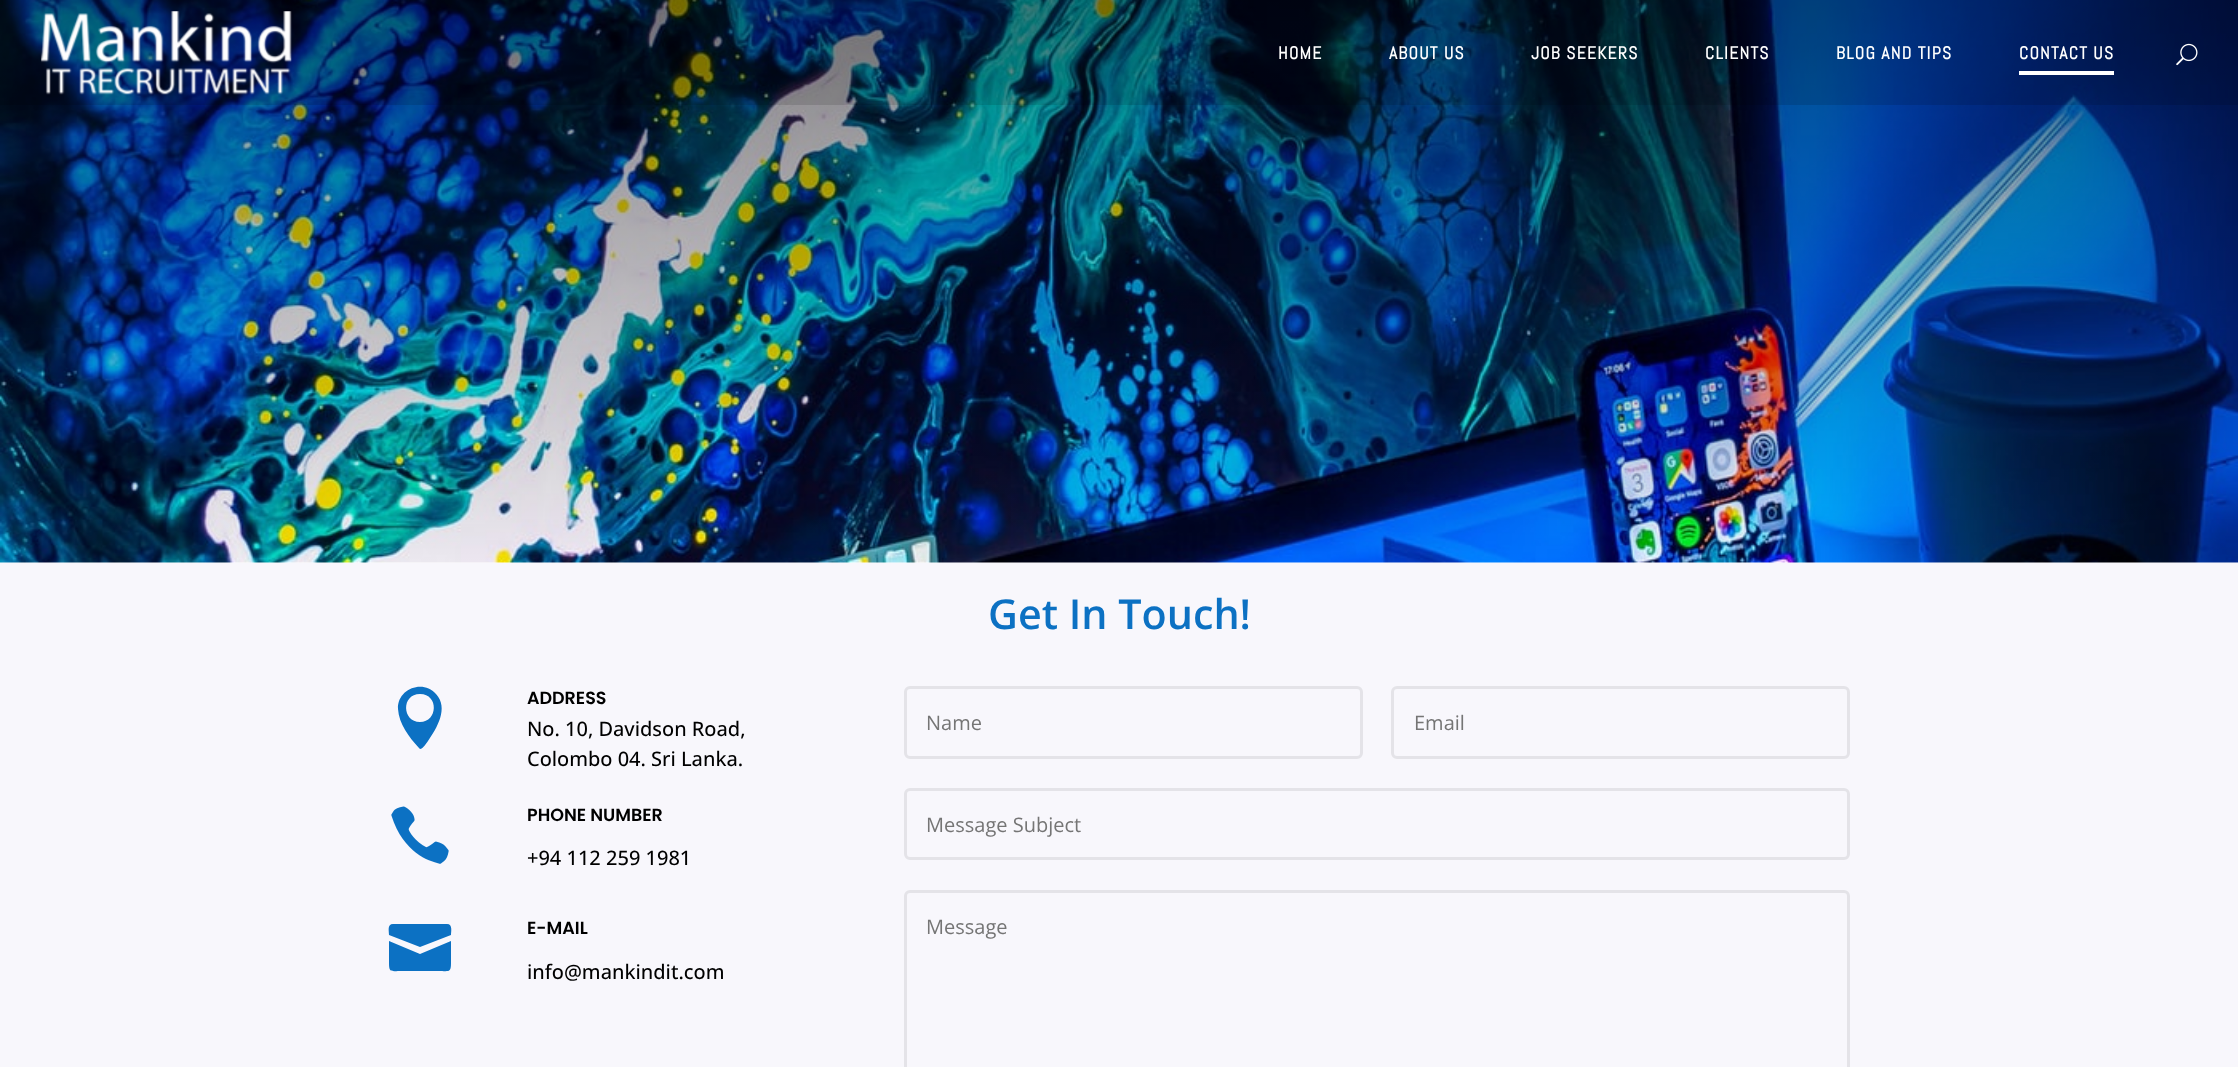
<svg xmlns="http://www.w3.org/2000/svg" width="2238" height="1067">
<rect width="100%" height="100%" fill="#fff"/>
<image x="0" y="0" width="2238" height="563" href="media/3.png"/>
<rect width="2238" height="105" fill="#0000001f"/>
<image x="41" y="11" width="251" height="84" href="media/1.png"/>
<text x="1278" y="59" style="font-family:Abel;font-size:17.5px;font-weight:bold;letter-spacing:1.25px;fill:#fff">HOME</text>
<text x="1389" y="59" style="font-family:Abel;font-size:17.5px;font-weight:bold;letter-spacing:1.25px;fill:#fff">ABOUT US</text>
<text x="1531" y="59" style="font-family:Abel;font-size:17.5px;font-weight:bold;letter-spacing:1.25px;fill:#fff">JOB SEEKERS</text>
<text x="1705" y="59" style="font-family:Abel;font-size:17.5px;font-weight:bold;letter-spacing:1.25px;fill:#fff">CLIENTS</text>
<text x="1836" y="59" style="font-family:Abel;font-size:17.5px;font-weight:bold;letter-spacing:1.25px;fill:#fff">BLOG AND TIPS</text>
<text x="2019" y="59" style="font-family:Abel;font-size:17.5px;font-weight:bold;letter-spacing:1.25px;fill:#fff">CONTACT US</text>
<rect x="2019" y="71" width="95" height="4" fill="#fff"/>
<image x="2176" y="43" width="22" height="23" href="media/2.png"/>
<rect y="563" width="2238" height="504" fill="#f8f7fc"/>
<text x="988" y="629" style="font-family:Open Sans;font-size:41.25px;font-weight:600;fill:#0c71c3">Get In Touch!</text>
<path d="M419 748l1 1c3 0 7-7 8-8c9-13 21-33 8-47c-13-15-39-5-38 15c1 15 11 28 21 39zm1-54c19 0 18 28 0 28c-18 0-19-28 0-28z" fill="#0c71c3"/>
<text x="527" y="704" style="font-family:Poppins;font-size:17.5px;font-weight:600;fill:#000">ADDRESS</text>
<text x="527" y="736" style="font-family:Open Sans;font-size:20px;font-weight:500;fill:#000">No. 10, Davidson Road,</text>
<text x="527" y="766" style="font-family:Open Sans;font-size:20px;font-weight:500;fill:#000">Colombo 04. Sri Lanka.</text>
<image x="391" y="806" width="58" height="58" href="media/4.png"/>
<text x="527" y="821" style="font-family:Poppins;font-size:17.5px;font-weight:600;fill:#000">PHONE NUMBER</text>
<text x="527" y="865" style="font-family:Open Sans;font-size:20px;font-weight:500;fill:#000">+94 112 259 1981</text>
<path d="M447 924h-54c-6 0-4 7-4 11l31 12l31-12c0-3 2-11-4-11zm-58 17v22c0 10 2 8 13 8h36c11 0 13 2 13-8v-22l-31 13z" fill="#0c71c3"/>
<text x="527" y="934" style="font-family:Poppins;font-size:17.5px;font-weight:600;fill:#000">E-MAIL</text>
<text x="527" y="979" style="font-family:Open Sans;font-size:20px;font-weight:500;fill:#000">info@mankindit.com</text>
<rect x="905.5" y="687.5" width="456" height="70" rx="4.5" fill="none" stroke="#e4e3e8" stroke-width="3"/>
<text x="926" y="730" style="font-family:Open Sans;font-size:20px;fill:#757575">Name</text>
<rect x="1392.5" y="687.5" width="456" height="70" rx="4.5" fill="none" stroke="#e4e3e8" stroke-width="3"/>
<text x="1414" y="730" style="font-family:Open Sans;font-size:20px;fill:#757575">Email</text>
<rect x="905.5" y="789.5" width="943" height="69" rx="4.5" fill="none" stroke="#e4e3e8" stroke-width="3"/>
<text x="926" y="832" style="font-family:Open Sans;font-size:20px;fill:#757575">Message Subject</text>
<rect x="905.5" y="891.5" width="943" height="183" rx="4.5" fill="none" stroke="#e4e3e8" stroke-width="3"/>
<text x="926" y="934" style="font-family:Open Sans;font-size:20px;fill:#757575">Message</text>
</svg>
